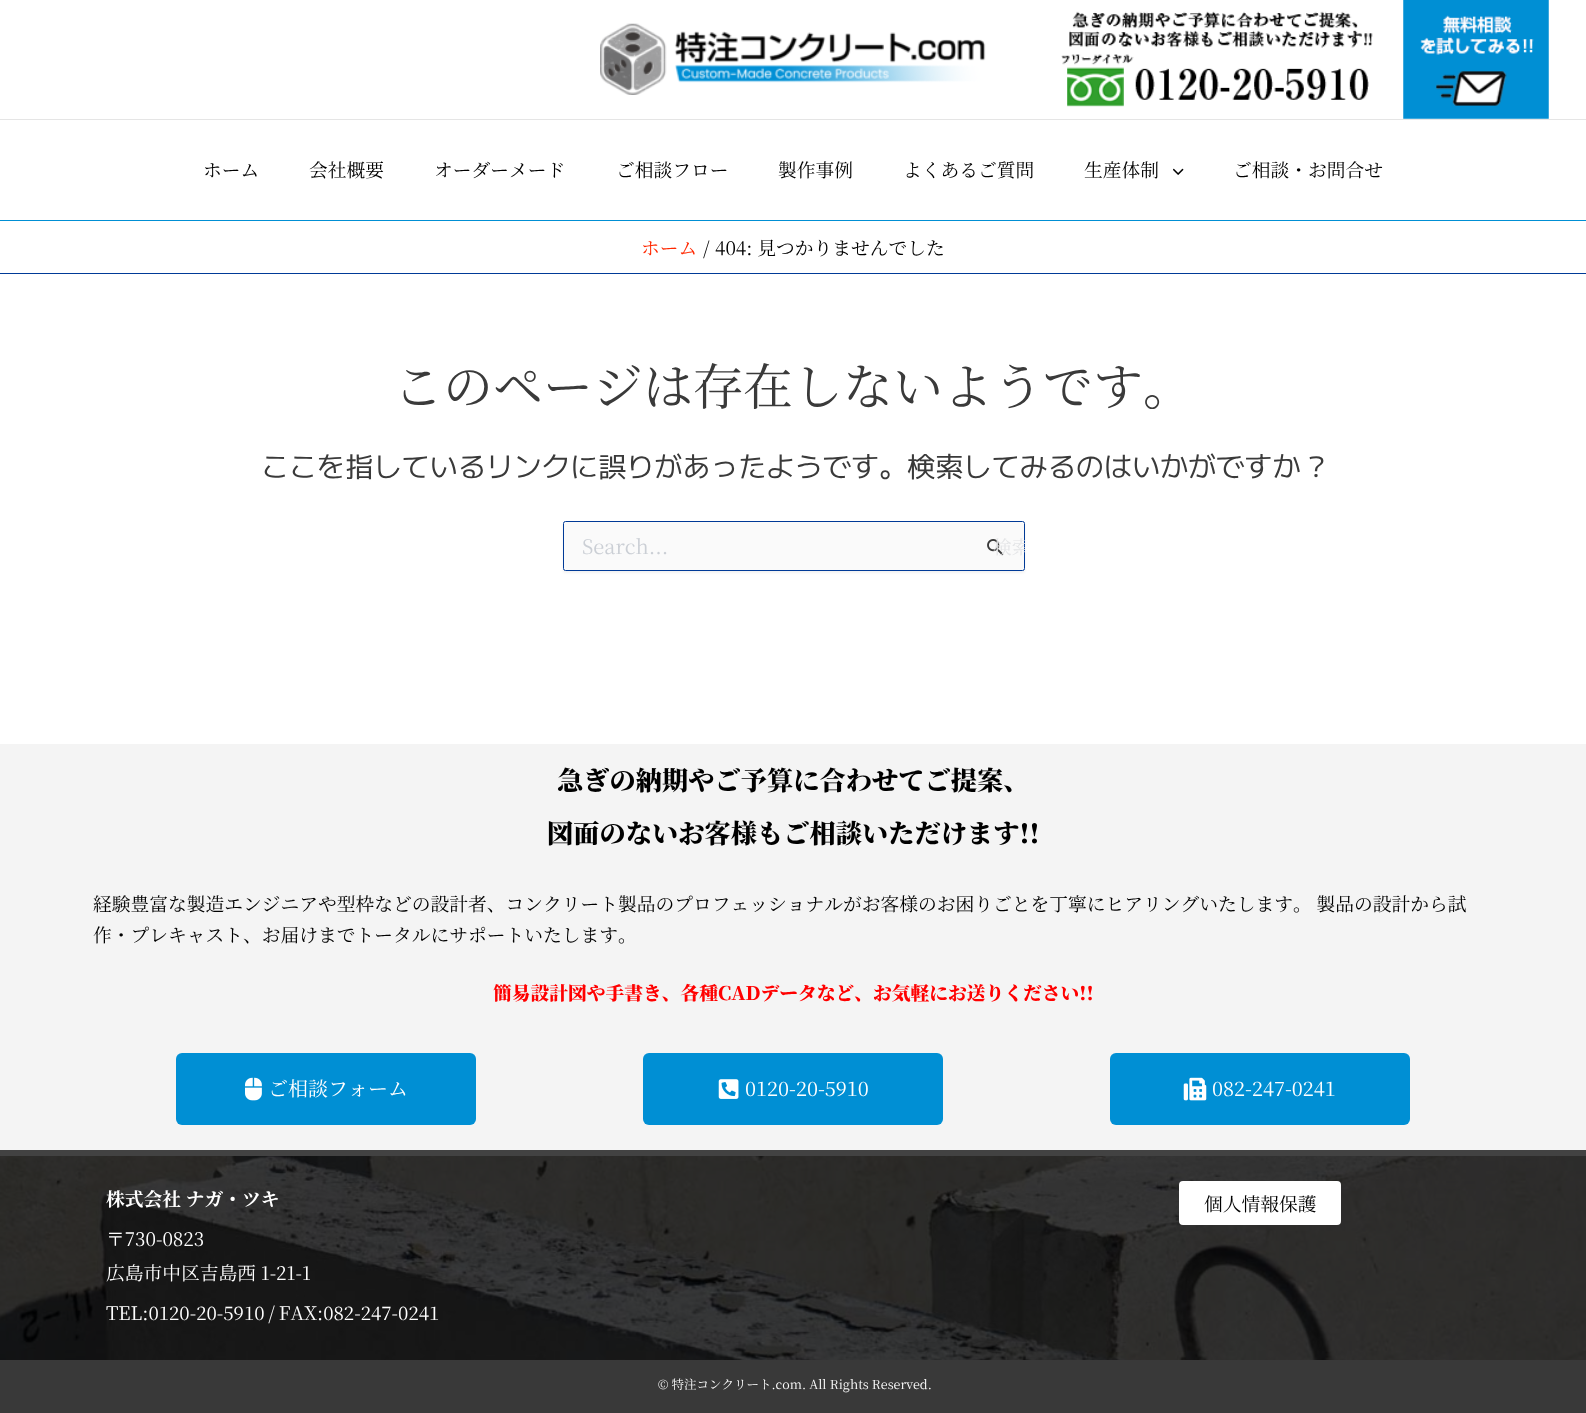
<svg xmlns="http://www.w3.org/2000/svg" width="1586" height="1413">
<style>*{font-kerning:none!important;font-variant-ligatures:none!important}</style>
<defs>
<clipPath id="clip1"><rect x="969" y="521" width="56" height="52" rx="2.5"/></clipPath>
</defs>
<rect width="100%" height="100%" fill="#fff"/>
<rect y="119" width="1586" height="1" fill="#e5e5e5"/>
<image x="600" y="23" width="386" height="72" href="media/1.png"/>
<image x="1061" y="0" width="488" height="119" href="media/2.png"/>
<rect y="220" width="1586" height="1" fill="#008fd4"/>
<text x="203" y="177" style="font-family:Noto Serif JP;font-size:18.75px;fill:#000">ホーム</text>
<text x="309" y="177" style="font-family:Noto Serif JP;font-size:18.75px;fill:#000">会社概要</text>
<text x="434" y="177" style="font-family:Noto Serif JP;font-size:18.75px;fill:#000">オーダーメード</text>
<text x="616" y="177" style="font-family:Noto Serif JP;font-size:18.75px;fill:#000">ご相談フロー</text>
<text x="778" y="177" style="font-family:Noto Serif JP;font-size:18.75px;fill:#000">製作事例</text>
<text x="903" y="177" style="font-family:Noto Serif JP;font-size:18.75px;fill:#000">よくあるご質問</text>
<text x="1084" y="177" style="font-family:Noto Serif JP;font-size:18.75px;fill:#000">生産体制</text>
<image x="1173" y="168" width="11" height="7" href="media/3.png"/>
<text x="1233" y="177" style="font-family:Noto Serif JP;font-size:18.75px;fill:#000">ご相談・お問合せ</text>
<rect y="273" width="1586" height="1" fill="#003a97"/>
<text x="641" y="255" style="font-family:Noto Serif JP;font-size:18.75px;fill:#ff2800">ホーム</text>
<text x="703" y="255" style="font-family:Noto Serif JP;font-size:18.75px;fill:#000">/</text>
<text x="715" y="255" style="font-family:Noto Serif JP;font-size:18.75px;fill:#000">404: 見つかりませんでした</text>
<text x="393" y="405" style="font-family:Noto Serif JP;font-size:50px;fill:#3a3a3a">このページは存在しないようです。</text>
<text x="261" y="477" style="font-family:'M PLUS 2';font-size:28.1px;fill:#3a3a3a">ここを指しているリンクに誤りがあったようです。検索してみるのはいかがですか ?</text>
<rect x="563" y="523" width="462" height="50" rx="2.5" fill="#0000000d" filter="blur(1px)"/>
<rect x="563.5" y="521.5" width="461" height="49" rx="2" fill="#fafafa" stroke="#003a97"/>
<text x="582" y="554" style="font-family:Noto Serif JP;font-size:20px;fill:#cbcfd5">Search...</text>
<image x="987" y="539" width="17" height="17" href="media/4.png"/>
<g clip-path="url(#clip1)">
<text x="993" y="554" style="font-family:Noto Serif JP;font-size:18.75px;fill:#e4e5e7">検索</text>
</g>
<rect y="744" width="1586" height="406" fill="#f4f4f4"/>
<text x="557" y="790" style="font-family:Noto Serif JP;font-size:26.25px;font-weight:900;fill:#000">急ぎの納期やご予算に合わせてご提案、</text>
<text x="547" y="843" style="font-family:Noto Serif JP;font-size:26.25px;font-weight:900;fill:#000">図面のないお客様もご相談いただけます!!</text>
<text x="93" y="911" style="font-family:Noto Serif JP;font-size:18.75px;fill:#000">経験豊富な製造エンジニアや型枠などの設計者、コンクリート製品のプロフェッショナルがお客様のお困りごとを丁寧にヒア</text>
<text x="1143" y="911" style="font-family:Noto Serif JP;font-size:18.75px;fill:#000">リングいたします。 製品の設計から試</text>
<text x="93" y="942" style="font-family:Noto Serif JP;font-size:18.75px;fill:#000">作・プレキャスト、お届けまでトータルにサポートいたします</text>
<text x="618" y="942" style="font-family:Noto Serif JP;font-size:18.75px;fill:#000">。</text>
<text x="493" y="1000" style="font-family:Noto Serif JP;font-size:18.75px;font-weight:900;fill:#f00">簡易設計図や手書き、各種CADデータなど、お気軽にお送りください!!</text>
<rect x="176" y="1053" width="300" height="72" rx="6" fill="#008fd4"/>
<image x="245" y="1077" width="17" height="24" href="media/5.png"/>
<text x="268" y="1096" style="font-family:Noto Serif JP;font-size:20px;fill:#fff">ご相談フォーム</text>
<rect x="643" y="1053" width="300" height="72" rx="6" fill="#008fd4"/>
<image x="718" y="1079" width="21" height="20" href="media/6.png"/>
<text x="745" y="1096" style="font-family:Noto Serif JP;font-size:20px;fill:#fff">0120-20-5910</text>
<rect x="1110" y="1053" width="300" height="72" rx="6" fill="#008fd4"/>
<image x="1183" y="1077" width="24" height="24" href="media/7.png"/>
<text x="1212" y="1096" style="font-family:Noto Serif JP;font-size:20px;fill:#fff">082-247-0241</text>
<image x="0" y="1156" width="1586" height="204" href="media/8.png"/>
<rect y="1150" width="1586" height="6" fill="#424242"/>
<text x="106" y="1206" style="font-family:Noto Serif JP;font-size:18.75px;font-weight:bold;fill:#fff">株式会社 ナガ・ツキ</text>
<text x="106" y="1246" style="font-family:Noto Serif JP;font-size:18.75px;fill:#fff">〒730-0823</text>
<text x="106" y="1280" style="font-family:Noto Serif JP;font-size:18.75px;fill:#fff">広島市中区吉島西 1-21-1</text>
<text x="106" y="1320" word-spacing="-1" style="font-family:Noto Serif JP;font-size:18.75px;fill:#fff">TEL:0120-20-5910 / FAX:082-247-0241</text>
<rect x="1179" y="1181" width="162" height="44" rx="4" fill="#fff"/>
<text x="1204" y="1211" style="font-family:Noto Serif JP;font-size:18.75px;fill:#000">個人情報保護</text>
<rect y="1360" width="1586" height="53" fill="#393939"/>
<text x="658" y="1389" style="font-family:Noto Serif JP;font-size:12.5px;fill:#fff">© 特注コンクリート.com. All Rights Reserved.</text>
</svg>
